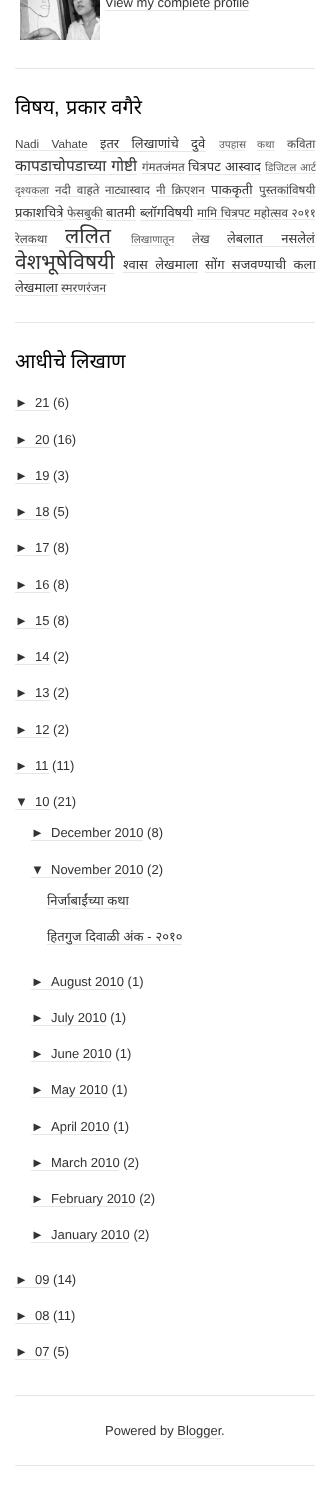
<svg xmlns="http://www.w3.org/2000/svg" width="330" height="1501">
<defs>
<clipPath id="clip1"><rect x="15" width="300" height="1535"/></clipPath>
</defs>
<rect width="100%" height="100%" fill="#fff"/>
<rect x="15" y="68" width="300" height="1" fill="#e6e6e6"/>
<image x="20" y="0" width="80" height="40" href="media/1.png"/>
<text x="105" y="7" style="font-family:Liberation Sans;font-size:13px;fill:#333">View my complete profile</text>
<rect x="105" y="10" width="144" height="1" fill="#e6e6e6"/>
<rect x="15" y="322" width="300" height="1" fill="#e6e6e6"/>
<text x="15" y="114" style="font-family:Noto Sans;font-size:20px;fill:#000">विषय</text>
<text x="54" y="114" style="font-family:Liberation Sans;font-size:20px;fill:#000">,</text>
<text x="66" y="114" style="font-family:Noto Sans;font-size:20px;fill:#000">प्रकार वगैरे</text>
<text x="15" y="148" word-spacing="9" style="font-family:Liberation Sans;font-size:11.75px;fill:#474747">Nadi Vahate</text>
<rect x="15" y="150" width="73" height="1" fill="#e8e8e8"/>
<rect x="100" y="151" width="106" height="1" fill="#e6e6e6"/>
<text x="100" y="148" word-spacing="9" style="font-family:Noto Sans;font-size:13px;fill:#333">इतर लिखाणांचे दुवे</text>
<text x="219" y="148" style="font-family:Noto Sans;font-size:10.5px;fill:#5c5c5c">उपहास</text>
<rect x="219" y="150" width="26" height="1" fill="#ebebeb"/>
<text x="257" y="148" style="font-family:Noto Sans;font-size:10.5px;fill:#5c5c5c">कथा</text>
<rect x="257" y="150" width="18" height="1" fill="#ebebeb"/>
<text x="287" y="148" style="font-family:Noto Sans;font-size:11.75px;fill:#474747">कविता</text>
<rect x="287" y="150" width="28" height="1" fill="#e8e8e8"/>
<text x="15" y="171" word-spacing="1" style="font-family:Noto Sans;font-size:15.5px;fill:#333">कापडाचोपडाच्या गोष्टी</text>
<rect x="15" y="174" width="122" height="1" fill="#e6e6e6"/>
<text x="142" y="171" style="font-family:Noto Sans;font-size:11.75px;fill:#474747">गंमतजंमत</text>
<rect x="142" y="173" width="43" height="1" fill="#e8e8e8"/>
<text x="188" y="171" word-spacing="1" style="font-family:Noto Sans;font-size:13px;fill:#333">चित्रपट आस्वाद</text>
<rect x="188" y="174" width="73" height="1" fill="#e6e6e6"/>
<text x="265" y="171" word-spacing="1" style="font-family:Noto Sans;font-size:10.5px;fill:#5c5c5c">डिजिटल आर्ट</text>
<rect x="265" y="173" width="50" height="1" fill="#ebebeb"/>
<rect x="15" y="196" width="34" height="1" fill="#ebebeb"/>
<text x="15" y="194" style="font-family:Noto Sans;font-size:10.5px;fill:#5c5c5c">दृश्यकला</text>
<text x="55" y="194" word-spacing="3" style="font-family:Noto Sans;font-size:11.75px;fill:#474747">नदी वाहते</text>
<rect x="55" y="196" width="44" height="1" fill="#e8e8e8"/>
<text x="105" y="194" style="font-family:Noto Sans;font-size:11.75px;fill:#474747">नाट्यास्वाद</text>
<rect x="105" y="196" width="45" height="1" fill="#e8e8e8"/>
<text x="156" y="194" word-spacing="3" style="font-family:Noto Sans;font-size:11.75px;fill:#474747">नी क्रिएशन</text>
<rect x="156" y="196" width="49" height="1" fill="#e8e8e8"/>
<rect x="211" y="197" width="41" height="1" fill="#e6e6e6"/>
<text x="211" y="194" style="font-family:Noto Sans;font-size:13px;fill:#333">पाककृती</text>
<rect x="259" y="196" width="56" height="1" fill="#e8e8e8"/>
<text x="259" y="194" style="font-family:Noto Sans;font-size:11.75px;fill:#474747">पुस्तकांविषयी</text>
<text x="15" y="217" style="font-family:Noto Sans;font-size:13px;fill:#333">प्रकाशचित्रे</text>
<rect x="15" y="220" width="48" height="1" fill="#e6e6e6"/>
<rect x="67" y="219" width="36" height="1" fill="#e8e8e8"/>
<text x="67" y="217" style="font-family:Noto Sans;font-size:11.75px;fill:#474747">फेसबुकी</text>
<text x="106" y="217" style="font-family:Noto Sans;font-size:13px;fill:#333">बातमी</text>
<rect x="106" y="220" width="30" height="1" fill="#e6e6e6"/>
<text x="140" y="217" style="font-family:Noto Sans;font-size:13px;fill:#333">ब्लॉगविषयी</text>
<rect x="140" y="220" width="53" height="1" fill="#e6e6e6"/>
<text x="197" y="217" word-spacing="0.5" style="font-family:Noto Sans;font-size:11.75px;fill:#474747">मामि चित्रपट महोत्सव २०११</text>
<rect x="197" y="219" width="118" height="1" fill="#e8e8e8"/>
<g clip-path="url(#clip1)">
<text x="15" y="243" style="font-family:Noto Sans;font-size:11.75px;fill:#474747">रेलकथा</text>
</g>
<rect x="15" y="245" width="32" height="1" fill="#e8e8e8"/>
<text x="65" y="243" style="font-family:Noto Sans;font-size:21px;fill:#333">ललित</text>
<rect x="65" y="247" width="46" height="1" fill="#e6e6e6"/>
<rect x="131" y="245" width="43" height="1" fill="#ebebeb"/>
<text x="131" y="243" style="font-family:Noto Sans;font-size:10.5px;fill:#5c5c5c">लिखाणातून</text>
<text x="192" y="243" style="font-family:Noto Sans;font-size:11.75px;fill:#474747">लेख</text>
<rect x="192" y="245" width="17" height="1" fill="#e8e8e8"/>
<text x="227" y="243" word-spacing="15" style="font-family:Noto Sans;font-size:13px;fill:#333">लेबलात नसलेलं</text>
<rect x="227" y="246" width="88" height="1" fill="#e6e6e6"/>
<rect x="15" y="273" width="99" height="1" fill="#e6e6e6"/>
<g clip-path="url(#clip1)">
<text x="15" y="269" style="font-family:Noto Sans;font-size:21px;fill:#333">वेशभूषेविषयी</text>
</g>
<text x="123" y="269" word-spacing="4" style="font-family:Noto Sans;font-size:13px;fill:#333">श्वास लेखमाला</text>
<rect x="123" y="272" width="75" height="1" fill="#e6e6e6"/>
<text x="205" y="269" word-spacing="4" style="font-family:Noto Sans;font-size:13px;fill:#333">सोंग सजवण्याची कला</text>
<rect x="205" y="272" width="110" height="1" fill="#e6e6e6"/>
<g clip-path="url(#clip1)">
<text x="15" y="292" style="font-family:Noto Sans;font-size:13px;fill:#333">लेखमाला</text>
</g>
<rect x="15" y="295" width="43" height="1" fill="#e6e6e6"/>
<text x="61" y="292" style="font-family:Noto Sans;font-size:11.75px;fill:#474747">स्मरणरंजन</text>
<rect x="61" y="294" width="45" height="1" fill="#e8e8e8"/>
<rect x="15" y="1395" width="300" height="1" fill="#e6e6e6"/>
<text x="15" y="368" style="font-family:Noto Sans;font-size:20px;fill:#000">आधीचे लिखाण</text>
<text x="15" y="407" style="font-family:Liberation Sans;font-size:13px;fill:#333">►</text>
<rect x="15" y="410" width="35" height="1" fill="#e6e6e6"/>
<text x="35" y="407" style="font-family:Liberation Sans;font-size:13px;fill:#333">21 (6)</text>
<text x="15" y="444" style="font-family:Liberation Sans;font-size:13px;fill:#333">►</text>
<rect x="15" y="447" width="35" height="1" fill="#e6e6e6"/>
<text x="35" y="444" style="font-family:Liberation Sans;font-size:13px;fill:#333">20 (16)</text>
<text x="15" y="480" style="font-family:Liberation Sans;font-size:13px;fill:#333">►</text>
<rect x="15" y="483" width="35" height="1" fill="#e6e6e6"/>
<text x="35" y="480" style="font-family:Liberation Sans;font-size:13px;fill:#333">19 (3)</text>
<text x="15" y="516" style="font-family:Liberation Sans;font-size:13px;fill:#333">►</text>
<rect x="15" y="519" width="35" height="1" fill="#e6e6e6"/>
<text x="35" y="516" style="font-family:Liberation Sans;font-size:13px;fill:#333">18 (5)</text>
<text x="15" y="552" style="font-family:Liberation Sans;font-size:13px;fill:#333">►</text>
<rect x="15" y="555" width="35" height="1" fill="#e6e6e6"/>
<text x="35" y="552" style="font-family:Liberation Sans;font-size:13px;fill:#333">17 (8)</text>
<text x="15" y="589" style="font-family:Liberation Sans;font-size:13px;fill:#333">►</text>
<rect x="15" y="592" width="35" height="1" fill="#e6e6e6"/>
<text x="35" y="589" style="font-family:Liberation Sans;font-size:13px;fill:#333">16 (8)</text>
<text x="15" y="625" style="font-family:Liberation Sans;font-size:13px;fill:#333">►</text>
<rect x="15" y="628" width="35" height="1" fill="#e6e6e6"/>
<text x="35" y="625" style="font-family:Liberation Sans;font-size:13px;fill:#333">15 (8)</text>
<text x="15" y="661" style="font-family:Liberation Sans;font-size:13px;fill:#333">►</text>
<rect x="15" y="664" width="35" height="1" fill="#e6e6e6"/>
<text x="35" y="661" style="font-family:Liberation Sans;font-size:13px;fill:#333">14 (2)</text>
<text x="15" y="697" style="font-family:Liberation Sans;font-size:13px;fill:#333">►</text>
<rect x="15" y="700" width="35" height="1" fill="#e6e6e6"/>
<text x="35" y="697" style="font-family:Liberation Sans;font-size:13px;fill:#333">13 (2)</text>
<text x="15" y="734" style="font-family:Liberation Sans;font-size:13px;fill:#333">►</text>
<rect x="15" y="737" width="35" height="1" fill="#e6e6e6"/>
<text x="35" y="734" style="font-family:Liberation Sans;font-size:13px;fill:#333">12 (2)</text>
<text x="15" y="770" style="font-family:Liberation Sans;font-size:13px;fill:#333">►</text>
<rect x="15" y="773" width="34" height="1" fill="#e6e6e6"/>
<text x="35" y="770" style="font-family:Liberation Sans;font-size:13px;fill:#333">11 (11)</text>
<text x="15" y="806" style="font-family:Liberation Sans;font-size:13px;fill:#333">▼</text>
<rect x="15" y="809" width="35" height="1" fill="#e6e6e6"/>
<text x="35" y="806" style="font-family:Liberation Sans;font-size:13px;fill:#333">10 (21)</text>
<text x="31" y="837" style="font-family:Liberation Sans;font-size:13px;fill:#333">►</text>
<rect x="31" y="840" width="112" height="1" fill="#e6e6e6"/>
<text x="51" y="837" style="font-family:Liberation Sans;font-size:13px;fill:#333">December 2010 (8)</text>
<text x="31" y="874" style="font-family:Liberation Sans;font-size:13px;fill:#333">▼</text>
<rect x="31" y="877" width="112" height="1" fill="#e6e6e6"/>
<text x="51" y="874" style="font-family:Liberation Sans;font-size:13px;fill:#333">November 2010 (2)</text>
<text x="47" y="905" style="font-family:Noto Sans;font-size:13px;fill:#333">निर्जाबाईंच्या कथा</text>
<rect x="47" y="908" width="83" height="1" fill="#e6e6e6"/>
<rect x="47" y="944" width="135" height="1" fill="#e6e6e6"/>
<text x="47" y="941" word-spacing="0.5" style="font-family:Noto Sans;font-size:13px;fill:#333">हितगुज दिवाळी अंक - २०१०</text>
<text x="31" y="986" style="font-family:Liberation Sans;font-size:13px;fill:#333">►</text>
<rect x="31" y="989" width="93" height="1" fill="#e6e6e6"/>
<text x="51" y="986" style="font-family:Liberation Sans;font-size:13px;fill:#333">August 2010 (1)</text>
<text x="31" y="1022" style="font-family:Liberation Sans;font-size:13px;fill:#333">►</text>
<rect x="31" y="1025" width="75" height="1" fill="#e6e6e6"/>
<text x="51" y="1022" style="font-family:Liberation Sans;font-size:13px;fill:#333">July 2010 (1)</text>
<text x="31" y="1058" style="font-family:Liberation Sans;font-size:13px;fill:#333">►</text>
<rect x="31" y="1061" width="80" height="1" fill="#e6e6e6"/>
<text x="51" y="1058" style="font-family:Liberation Sans;font-size:13px;fill:#333">June 2010 (1)</text>
<text x="31" y="1094" style="font-family:Liberation Sans;font-size:13px;fill:#333">►</text>
<rect x="31" y="1097" width="77" height="1" fill="#e6e6e6"/>
<text x="51" y="1094" style="font-family:Liberation Sans;font-size:13px;fill:#333">May 2010 (1)</text>
<text x="31" y="1131" style="font-family:Liberation Sans;font-size:13px;fill:#333">►</text>
<rect x="31" y="1134" width="78" height="1" fill="#e6e6e6"/>
<text x="51" y="1131" style="font-family:Liberation Sans;font-size:13px;fill:#333">April 2010 (1)</text>
<text x="31" y="1167" style="font-family:Liberation Sans;font-size:13px;fill:#333">►</text>
<rect x="31" y="1170" width="88" height="1" fill="#e6e6e6"/>
<text x="51" y="1167" style="font-family:Liberation Sans;font-size:13px;fill:#333">March 2010 (2)</text>
<text x="31" y="1203" style="font-family:Liberation Sans;font-size:13px;fill:#333">►</text>
<rect x="31" y="1206" width="104" height="1" fill="#e6e6e6"/>
<text x="51" y="1203" style="font-family:Liberation Sans;font-size:13px;fill:#333">February 2010 (2)</text>
<text x="31" y="1239" style="font-family:Liberation Sans;font-size:13px;fill:#333">►</text>
<rect x="31" y="1242" width="98" height="1" fill="#e6e6e6"/>
<text x="51" y="1239" style="font-family:Liberation Sans;font-size:13px;fill:#333">January 2010 (2)</text>
<text x="15" y="1284" style="font-family:Liberation Sans;font-size:13px;fill:#333">►</text>
<rect x="15" y="1287" width="35" height="1" fill="#e6e6e6"/>
<text x="35" y="1284" style="font-family:Liberation Sans;font-size:13px;fill:#333">09 (14)</text>
<text x="15" y="1320" style="font-family:Liberation Sans;font-size:13px;fill:#333">►</text>
<rect x="15" y="1323" width="35" height="1" fill="#e6e6e6"/>
<text x="35" y="1320" style="font-family:Liberation Sans;font-size:13px;fill:#333">08 (11)</text>
<text x="15" y="1356" style="font-family:Liberation Sans;font-size:13px;fill:#333">►</text>
<rect x="15" y="1359" width="35" height="1" fill="#e6e6e6"/>
<text x="35" y="1356" style="font-family:Liberation Sans;font-size:13px;fill:#333">07 (5)</text>
<rect x="15" y="1465" width="300" height="1" fill="#e6e6e6"/>
<text x="105" y="1435" style="font-family:Liberation Sans;font-size:13px;fill:#333">Powered by Blogger</text>
<text x="221" y="1435" style="font-family:Liberation Sans;font-size:13px;fill:#333">.</text>
<rect x="177" y="1438" width="44" height="1" fill="#e6e6e6"/>
</svg>
